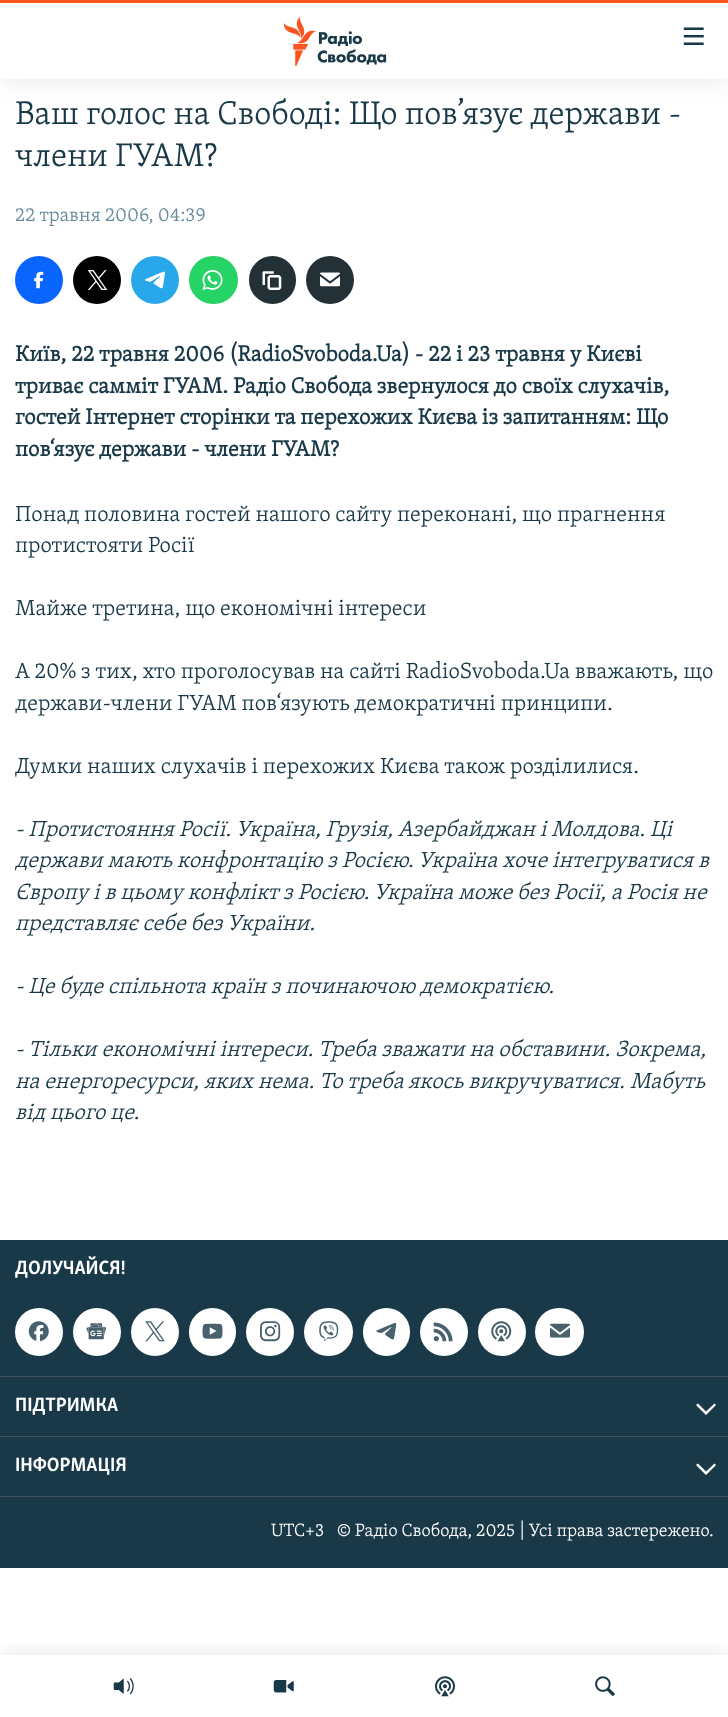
<svg xmlns="http://www.w3.org/2000/svg" width="728" height="1717">
<defs>
<clipPath id="clip1"><rect x="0" y="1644" width="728" height="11"/></clipPath>
</defs>
<rect width="100%" height="100%" fill="#fff"/>
<rect width="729" height="79" fill="#0000001a" filter="blur(12.5px)"/>
<rect y="3" width="728" height="76" fill="#fff"/>
<rect width="728" height="3" fill="#fa5420"/>
<image x="284" y="16" width="103" height="50" href="media/1.png"/>
<image x="683" y="27" width="21" height="18" href="media/2.png"/>
<g clip-path="url(#clip1)">
<rect y="1655" width="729" height="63" fill="#0000001a" filter="blur(12.5px)"/>
</g>
<image x="113" y="1678" width="21" height="17" href="media/3.png"/>
<image x="273" y="1680" width="21" height="13" href="media/4.png"/>
<image x="435" y="1676" width="20" height="21" href="media/5.png"/>
<image x="595" y="1676" width="20" height="21" href="media/6.png"/>
<text x="15" y="124" style="font-family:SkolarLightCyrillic;font-size:33.75px;font-weight:300;fill:#1a3948">Ваш голос на Свободі: Що пов’язує держави -</text>
<text x="15" y="166" style="font-family:SkolarLightCyrillic;font-size:33.75px;font-weight:300;fill:#1a3948">члени ГУАМ?</text>
<text x="15" y="221" style="font-family:SkolarLightCyrillic;font-size:19.75px;font-weight:300;fill:#678a9b">22 травня 2006, 04:39</text>
<circle cx="39" cy="280" r="24" fill="#0866ff"/>
<image x="34" y="271" width="10" height="18" href="media/7.png"/>
<circle cx="97" cy="280" r="24" fill="#000"/>
<image x="87" y="270" width="21" height="20" href="media/8.png"/>
<circle cx="155" cy="280" r="24" fill="#28a8ea"/>
<image x="145" y="271" width="20" height="18" href="media/9.png"/>
<rect x="189" y="256" width="49" height="48" rx="24" fill="#25d366"/>
<image x="202" y="270" width="21" height="20" href="media/10.png"/>
<rect x="249" y="256" width="47" height="48" rx="23.5" fill="#233036"/>
<image x="262" y="271" width="20" height="19" href="media/11.png"/>
<circle cx="330" cy="280" r="24" fill="#233036"/>
<image x="320" y="272" width="20" height="15" href="media/12.png"/>
<text x="15" y="361" style="font-family:SkolarLightCyrillic;font-size:22.5px;font-weight:bold;fill:#1a3948">Київ, 22 травня 2006 (RadioSvoboda.Ua) - 22 і 23 травня у Києві</text>
<text x="15" y="393" style="font-family:SkolarLightCyrillic;font-size:22.5px;font-weight:bold;fill:#1a3948">триває самміт ГУАМ. Радіо Свобода звернулося до своїх слухачів,</text>
<text x="15" y="424" style="font-family:SkolarLightCyrillic;font-size:22.5px;font-weight:bold;fill:#1a3948">гостей Інтернет сторінки та перехожих Києва із запитанням: Що</text>
<text x="15" y="456" style="font-family:SkolarLightCyrillic;font-size:22.5px;font-weight:bold;fill:#1a3948">пов‘язує держави - члени ГУАМ?</text>
<text x="15" y="521" style="font-family:SkolarLightCyrillic;font-size:22.5px;font-weight:300;fill:#1a3948">Понад половина гостей нашого сайту переконані, що прагнення</text>
<text x="15" y="552" style="font-family:SkolarLightCyrillic;font-size:22.5px;font-weight:300;fill:#1a3948">протистояти Росії</text>
<text x="15" y="615" style="font-family:SkolarLightCyrillic;font-size:22.5px;font-weight:300;fill:#1a3948">Майже третина, що економічні інтереси</text>
<text x="15" y="678" style="font-family:SkolarLightCyrillic;font-size:22.5px;font-weight:300;fill:#1a3948">А 20% з тих, хто проголосував на сайті RadioSvoboda.Ua вважають, що</text>
<text x="15" y="710" style="font-family:SkolarLightCyrillic;font-size:22.5px;font-weight:300;fill:#1a3948">держави-члени ГУАМ пов‘язують демократичні принципи.</text>
<text x="15" y="773" style="font-family:SkolarLightCyrillic;font-size:22.5px;font-weight:300;fill:#1a3948">Думки наших слухачів і перехожих Києва також розділилися.</text>
<text x="15" y="836" style="font-family:SkolarLightCyrillic;font-size:22.5px;font-weight:300;font-style:italic;fill:#1a3948">- Протистояння Росії. Україна, Грузія, Азербайджан і Молдова. Ці</text>
<text x="15" y="867" style="font-family:SkolarLightCyrillic;font-size:22.5px;font-weight:300;font-style:italic;fill:#1a3948">держави мають конфронтацію з Росією. Україна хоче інтегруватися в</text>
<text x="15" y="899" style="font-family:SkolarLightCyrillic;font-size:22.5px;font-weight:300;font-style:italic;fill:#1a3948">Європу і в цьому конфлікт з Росією. Україна може без Росії, а Росія не</text>
<text x="15" y="930" style="font-family:SkolarLightCyrillic;font-size:22.5px;font-weight:300;font-style:italic;fill:#1a3948">представляє себе без України.</text>
<text x="15" y="993" style="font-family:SkolarLightCyrillic;font-size:22.5px;font-weight:300;font-style:italic;fill:#1a3948">- Це буде спільнота країн з починаючою демократією.</text>
<text x="15" y="1056" style="font-family:SkolarLightCyrillic;font-size:22.5px;font-weight:300;font-style:italic;fill:#1a3948">- Тільки економічні інтереси. Треба зважати на обставини. Зокрема,</text>
<text x="15" y="1088" style="font-family:SkolarLightCyrillic;font-size:22.5px;font-weight:300;font-style:italic;fill:#1a3948">на енергоресурси, яких нема. То треба якось викручуватися. Мабуть</text>
<text x="15" y="1119" style="font-family:SkolarLightCyrillic;font-size:22.5px;font-weight:300;font-style:italic;fill:#1a3948">від цього це.</text>
<rect y="1240" width="728" height="328" fill="#1a3948"/>
<rect y="1496" width="728" height="1" fill="#3e4f57"/>
<text x="15" y="1274" style="font-family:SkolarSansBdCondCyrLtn;font-size:19.75px;font-weight:bold;fill:#fff">ДОЛУЧАЙСЯ!</text>
<circle cx="39" cy="1332" r="24" fill="#fff"/>
<image x="28" y="1321" width="21" height="21" href="media/13.png"/>
<circle cx="97" cy="1332" r="24" fill="#fff"/>
<image x="86" y="1323" width="21" height="17" href="media/14.png"/>
<circle cx="155" cy="1332" r="24" fill="#fff"/>
<image x="145" y="1321" width="20" height="21" href="media/15.png"/>
<rect x="189" y="1308" width="47" height="48" rx="23.5" fill="#fff"/>
<image x="202" y="1323" width="21" height="16" href="media/16.png"/>
<circle cx="270" cy="1332" r="24" fill="#fff"/>
<image x="260" y="1321" width="21" height="21" href="media/17.png"/>
<rect x="304" y="1308" width="49" height="48" rx="24" fill="#fff"/>
<image x="319" y="1321" width="20" height="21" href="media/18.png"/>
<rect x="363" y="1308" width="47" height="48" rx="23.5" fill="#fff"/>
<image x="376" y="1323" width="21" height="17" href="media/19.png"/>
<circle cx="444" cy="1332" r="24" fill="#fff"/>
<image x="433" y="1322" width="20" height="20" href="media/20.png"/>
<circle cx="502" cy="1332" r="24" fill="#fff"/>
<image x="491" y="1321" width="21" height="21" href="media/21.png"/>
<rect x="535" y="1308" width="49" height="48" rx="24" fill="#fff"/>
<image x="550" y="1323" width="20" height="15" href="media/22.png"/>
<rect y="1376" width="728" height="1" fill="#3e4f57"/>
<text x="15" y="1411" style="font-family:SkolarSansBdCondCyrLtn;font-size:19.75px;font-weight:bold;fill:#fff">ПІДТРИМКА</text>
<path d="M696 1405l10 10l10-10l-1.5-1.5l-8.5 8l-8-8z" fill="#fff"/>
<rect y="1436" width="728" height="1" fill="#3e4f57"/>
<text x="15" y="1471" style="font-family:SkolarSansBdCondCyrLtn;font-size:19.75px;font-weight:bold;fill:#fff">ІНФОРМАЦІЯ</text>
<path d="M696 1465l10 10l10-10l-1.5-1.5l-8.5 8l-8-8z" fill="#fff"/>
<text x="271" y="1536" style="font-family:SkolarLightCyrillic;font-size:18.25px;font-weight:300;fill:#fff">UTC+3</text>
<text x="337" y="1536" style="font-family:SkolarLightCyrillic;font-size:18.25px;font-weight:300;fill:#fff">© Радіо Свобода, 2025 | Усі права застережено.</text>
</svg>
